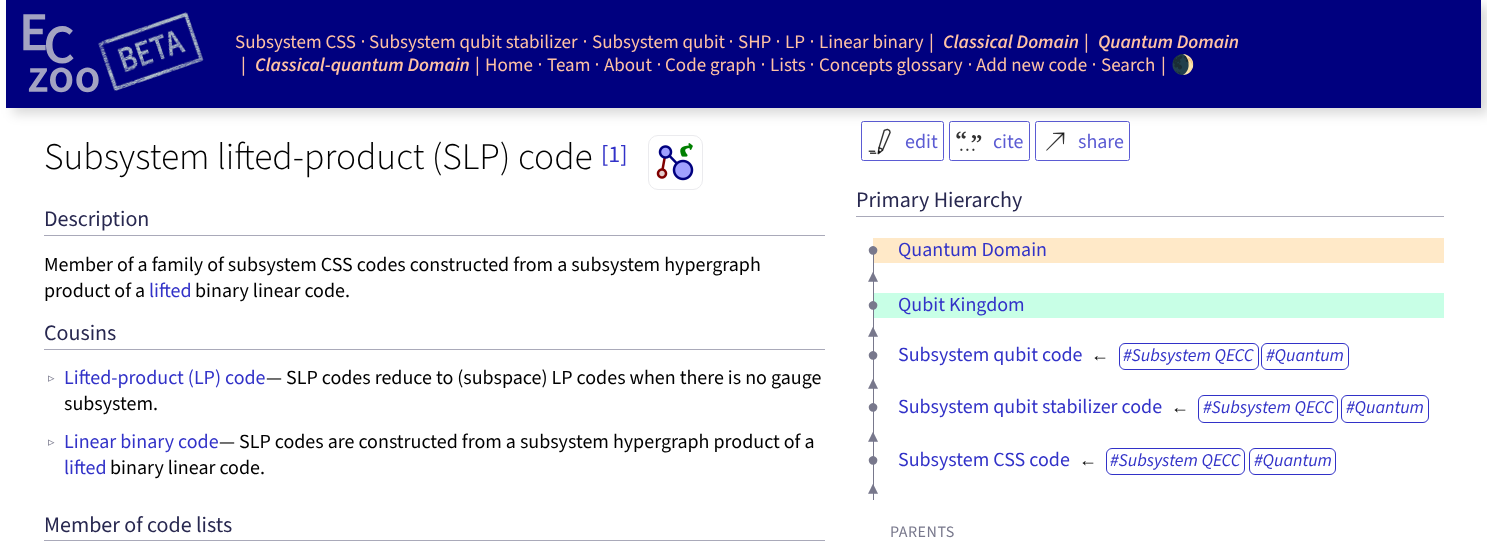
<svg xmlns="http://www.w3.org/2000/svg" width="1487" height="547">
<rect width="100%" height="100%" fill="#fff"/>
<image x="868" y="128" width="23" height="27" href="media/3.png"/>
<rect x="861.5" y="121.5" width="82" height="39" rx="2" fill="none" stroke="#5b5bd3"/>
<image x="956" y="131" width="26" height="20" href="media/4.png"/>
<rect x="949.5" y="121.5" width="80" height="39" rx="2" fill="none" stroke="#5b5bd3"/>
<image x="1046" y="132" width="19" height="19" href="media/5.png"/>
<rect x="1035.5" y="121.5" width="94" height="39" rx="2" fill="none" stroke="#5b5bd3"/>
<rect x="13" y="6" width="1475" height="108" fill="#00000026" filter="blur(6px)"/>
<rect x="6" width="1475" height="108" fill="#00007f"/>
<image x="23" y="12" width="181" height="81" href="media/1.png"/>
<text x="235" y="48" style="font-family:'Source Sans 3';font-size:19px;fill:#ffc2a4">Subsystem CSS</text>
<text x="360" y="48" style="font-family:DejaVu Sans;font-size:19px;fill:#ffc2a4">⋅</text>
<text x="369" y="48" style="font-family:'Source Sans 3';font-size:19px;fill:#ffc2a4">Subsystem qubit stabilizer</text>
<text x="582" y="48" style="font-family:DejaVu Sans;font-size:19px;fill:#ffc2a4">⋅</text>
<text x="592" y="48" style="font-family:'Source Sans 3';font-size:19px;fill:#ffc2a4">Subsystem qubit</text>
<text x="728" y="48" style="font-family:DejaVu Sans;font-size:19px;fill:#ffc2a4">⋅</text>
<text x="738" y="48" style="font-family:'Source Sans 3';font-size:19px;fill:#ffc2a4">SHP</text>
<text x="775" y="48" style="font-family:DejaVu Sans;font-size:19px;fill:#ffc2a4">⋅</text>
<text x="785" y="48" style="font-family:'Source Sans 3';font-size:19px;fill:#ffc2a4">LP</text>
<text x="809" y="48" style="font-family:DejaVu Sans;font-size:19px;fill:#ffc2a4">⋅</text>
<text x="819" y="48" style="font-family:'Source Sans 3';font-size:19px;fill:#ffc2a4">Linear binary</text>
<text x="929" y="48" style="font-family:'Source Sans 3';font-size:19px;font-weight:600;font-style:italic;fill:#ffc2a4">|</text>
<text x="943" y="48" style="font-family:'Source Sans 3';font-size:19px;font-weight:600;font-style:italic;fill:#ffc2a4">Classical Domain</text>
<text x="1084" y="48" style="font-family:'Source Sans 3';font-size:19px;font-weight:600;font-style:italic;fill:#ffc2a4">|</text>
<text x="1098" y="48" style="font-family:'Source Sans 3';font-size:19px;font-weight:600;font-style:italic;fill:#ffc2a4">Quantum Domain</text>
<text x="241" y="71" style="font-family:'Source Sans 3';font-size:19px;font-weight:600;font-style:italic;fill:#ffc2a4">|</text>
<text x="255" y="71" style="font-family:'Source Sans 3';font-size:19px;font-weight:600;font-style:italic;fill:#ffc2a4">Classical-quantum Domain</text>
<text x="475" y="71" style="font-family:'Source Sans 3';font-size:19px;font-weight:600;font-style:italic;fill:#ffc2a4">|</text>
<text x="485" y="71" style="font-family:'Source Sans 3';font-size:19px;fill:#ffc2a4">Home</text>
<text x="537" y="71" style="font-family:DejaVu Sans;font-size:19px;fill:#ffc2a4">⋅</text>
<text x="547" y="71" style="font-family:'Source Sans 3';font-size:19px;fill:#ffc2a4">Team</text>
<text x="594" y="71" style="font-family:DejaVu Sans;font-size:19px;fill:#ffc2a4">⋅</text>
<text x="604" y="71" style="font-family:'Source Sans 3';font-size:19px;fill:#ffc2a4">About</text>
<text x="656" y="71" style="font-family:DejaVu Sans;font-size:19px;fill:#ffc2a4">⋅</text>
<text x="665" y="71" style="font-family:'Source Sans 3';font-size:19px;fill:#ffc2a4">Code graph</text>
<text x="760" y="71" style="font-family:DejaVu Sans;font-size:19px;fill:#ffc2a4">⋅</text>
<text x="770" y="71" style="font-family:'Source Sans 3';font-size:19px;fill:#ffc2a4">Lists</text>
<text x="809" y="71" style="font-family:DejaVu Sans;font-size:19px;fill:#ffc2a4">⋅</text>
<text x="819" y="71" style="font-family:'Source Sans 3';font-size:19px;fill:#ffc2a4">Concepts glossary</text>
<text x="967" y="71" style="font-family:DejaVu Sans;font-size:19px;fill:#ffc2a4">⋅</text>
<text x="976" y="71" style="font-family:'Source Sans 3';font-size:19px;fill:#ffc2a4">Add new code</text>
<text x="1091" y="71" style="font-family:DejaVu Sans;font-size:19px;fill:#ffc2a4">⋅</text>
<text x="1101" y="71" style="font-family:'Source Sans 3';font-size:19px;fill:#ffc2a4">Search</text>
<text x="1161" y="71" style="font-family:'Source Sans 3';font-size:19px;font-weight:600;font-style:italic;fill:#ffc2a4">|</text>
<text x="1171" y="71" style="font-family:Noto Color Emoji;font-size:19px;fill:#ffc2a4">🌒</text>
<text x="44" y="169" style="font-family:'Source Sans 3';font-size:37.5px;font-weight:300;fill:#000">Subsystem lifted-product (SLP) code</text>
<text x="601" y="162" style="font-family:'Source Sans 3';font-size:24px;fill:#3232c8">[1]</text>
<image x="656" y="143" width="38" height="38" href="media/2.png"/>
<rect x="648.5" y="135.5" width="54" height="54" rx="9.5" fill="none" stroke="#ebebee"/>
<rect x="44" y="235" width="781" height="1" fill="#a9a9b9"/>
<text x="44" y="226" style="font-family:'Source Sans 3';font-size:22px;fill:#282850">Description</text>
<text x="44" y="271" style="font-family:'Source Sans 3';font-size:20px;fill:#000">Member of a family of subsystem CSS codes constructed from a subsystem hypergraph</text>
<text x="44" y="297" style="font-family:'Source Sans 3';font-size:20px;fill:#000">product of a</text>
<text x="149" y="297" style="font-family:'Source Sans 3';font-size:20px;fill:#3232c8">lifted</text>
<text x="195" y="297" style="font-family:'Source Sans 3';font-size:20px;fill:#000">binary linear code.</text>
<rect x="44" y="349" width="781" height="1" fill="#a9a9b9"/>
<text x="44" y="340" style="font-family:'Source Sans 3';font-size:22px;fill:#282850">Cousins</text>
<text x="48" y="382" style="font-family:DejaVu Sans;font-size:13px;fill:#78788c">▹</text>
<text x="64" y="384" style="font-family:'Source Sans 3';font-size:20px;fill:#3232c8">Lifted-product (LP) code</text>
<text x="266" y="384" style="font-family:'Source Sans 3';font-size:20px;fill:#000">— SLP codes reduce to (subspace) LP codes when there is no gauge</text>
<text x="64" y="410" style="font-family:'Source Sans 3';font-size:20px;fill:#000">subsystem.</text>
<text x="48" y="446" style="font-family:DejaVu Sans;font-size:13px;fill:#78788c">▹</text>
<text x="64" y="448" style="font-family:'Source Sans 3';font-size:20px;fill:#3232c8">Linear binary code</text>
<text x="219" y="448" style="font-family:'Source Sans 3';font-size:20px;fill:#000">— SLP codes are constructed from a subsystem hypergraph product of a</text>
<text x="64" y="474" style="font-family:'Source Sans 3';font-size:20px;fill:#3232c8">lifted</text>
<text x="110" y="474" style="font-family:'Source Sans 3';font-size:20px;fill:#000">binary linear code.</text>
<rect x="44" y="540" width="781" height="1" fill="#a9a9b9"/>
<text x="44" y="532" style="font-family:'Source Sans 3';font-size:22px;fill:#282850">Member of code lists</text>
<text x="905" y="148" style="font-family:'Source Sans 3';font-size:20px;fill:#5b5bd3">edit</text>
<text x="993" y="148" style="font-family:'Source Sans 3';font-size:20px;fill:#5b5bd3">cite</text>
<text x="1078" y="148" style="font-family:'Source Sans 3';font-size:20px;fill:#5b5bd3">share</text>
<rect x="856" y="216" width="588" height="1" fill="#a9a9b9"/>
<text x="856" y="207" style="font-family:'Source Sans 3';font-size:22px;fill:#282850">Primary Hierarchy</text>
<rect x="873" y="238" width="571" height="25" fill="#ffe9c8"/>
<text x="867" y="256" style="font-family:Liberation Sans;font-size:20px;fill:#78788c">●</text>
<text x="898" y="256" style="font-family:'Source Sans 3';font-size:20px;fill:#3232c8">Quantum Domain</text>
<rect x="873" y="251" width="1" height="12" fill="#78788c"/>
<rect x="873" y="263" width="1" height="25" fill="#78788c"/>
<text x="868" y="282" style="font-family:DejaVu Sans;font-size:20px;fill:#78788c">▴</text>
<rect x="873" y="288" width="1" height="30" fill="#78788c"/>
<rect x="874" y="293" width="570" height="25" fill="#c8ffe6"/>
<text x="898" y="311" style="font-family:'Source Sans 3';font-size:20px;fill:#3232c8">Qubit Kingdom</text>
<text x="867" y="311" style="font-family:Liberation Sans;font-size:20px;fill:#78788c">●</text>
<rect x="873" y="318" width="1" height="25" fill="#78788c"/>
<text x="868" y="337" style="font-family:DejaVu Sans;font-size:20px;fill:#78788c">▴</text>
<rect x="873" y="343" width="1" height="27" fill="#78788c"/>
<text x="898" y="361" style="font-family:'Source Sans 3';font-size:20px;fill:#3232c8">Subsystem qubit code</text>
<text x="1091" y="361" style="font-family:Liberation Sans;font-size:18px;fill:#000">←</text>
<rect x="1119.5" y="343.5" width="139" height="26" rx="5.5" fill="none" stroke="#3232c8"/>
<text x="1123" y="361" style="font-family:'Source Sans 3';font-size:18px;font-style:italic;fill:#3232c8">#Subsystem QECC</text>
<rect x="1261.5" y="343.5" width="87" height="26" rx="5.5" fill="none" stroke="#3232c8"/>
<text x="1266" y="361" style="font-family:'Source Sans 3';font-size:18px;font-style:italic;fill:#3232c8">#Quantum</text>
<text x="867" y="361" style="font-family:Liberation Sans;font-size:20px;fill:#78788c">●</text>
<rect x="873" y="370" width="1" height="25" fill="#78788c"/>
<text x="868" y="389" style="font-family:DejaVu Sans;font-size:20px;fill:#78788c">▴</text>
<rect x="873" y="395" width="1" height="28" fill="#78788c"/>
<text x="898" y="413" style="font-family:'Source Sans 3';font-size:20px;fill:#3232c8">Subsystem qubit stabilizer code</text>
<text x="1171" y="413" style="font-family:Liberation Sans;font-size:18px;fill:#000">←</text>
<rect x="1198.5" y="395.5" width="139" height="27" rx="5.5" fill="none" stroke="#3232c8"/>
<text x="1203" y="413" style="font-family:'Source Sans 3';font-size:18px;font-style:italic;fill:#3232c8">#Subsystem QECC</text>
<rect x="1341.5" y="395.5" width="87" height="27" rx="5.5" fill="none" stroke="#3232c8"/>
<text x="1346" y="413" style="font-family:'Source Sans 3';font-size:18px;font-style:italic;fill:#3232c8">#Quantum</text>
<text x="867" y="413" style="font-family:Liberation Sans;font-size:20px;fill:#78788c">●</text>
<rect x="873" y="423" width="1" height="25" fill="#78788c"/>
<text x="868" y="442" style="font-family:DejaVu Sans;font-size:20px;fill:#78788c">▴</text>
<rect x="873" y="448" width="1" height="27" fill="#78788c"/>
<text x="898" y="466" style="font-family:'Source Sans 3';font-size:20px;fill:#3232c8">Subsystem CSS code</text>
<text x="1079" y="466" style="font-family:Liberation Sans;font-size:18px;fill:#000">←</text>
<rect x="1106.5" y="448.5" width="138" height="26" rx="5.5" fill="none" stroke="#3232c8"/>
<text x="1110" y="466" style="font-family:'Source Sans 3';font-size:18px;font-style:italic;fill:#3232c8">#Subsystem QECC</text>
<rect x="1249.5" y="448.5" width="86" height="26" rx="5.5" fill="none" stroke="#3232c8"/>
<text x="1254" y="466" style="font-family:'Source Sans 3';font-size:18px;font-style:italic;fill:#3232c8">#Quantum</text>
<text x="867" y="466" style="font-family:Liberation Sans;font-size:20px;fill:#78788c">●</text>
<rect x="873" y="475" width="1" height="25" fill="#78788c"/>
<text x="868" y="494" style="font-family:DejaVu Sans;font-size:20px;fill:#78788c">▴</text>
<text x="890" y="537" style="font-family:'Source Sans 3';font-size:16px;letter-spacing:0.5px;fill:#78788c">PARENTS</text>
</svg>
